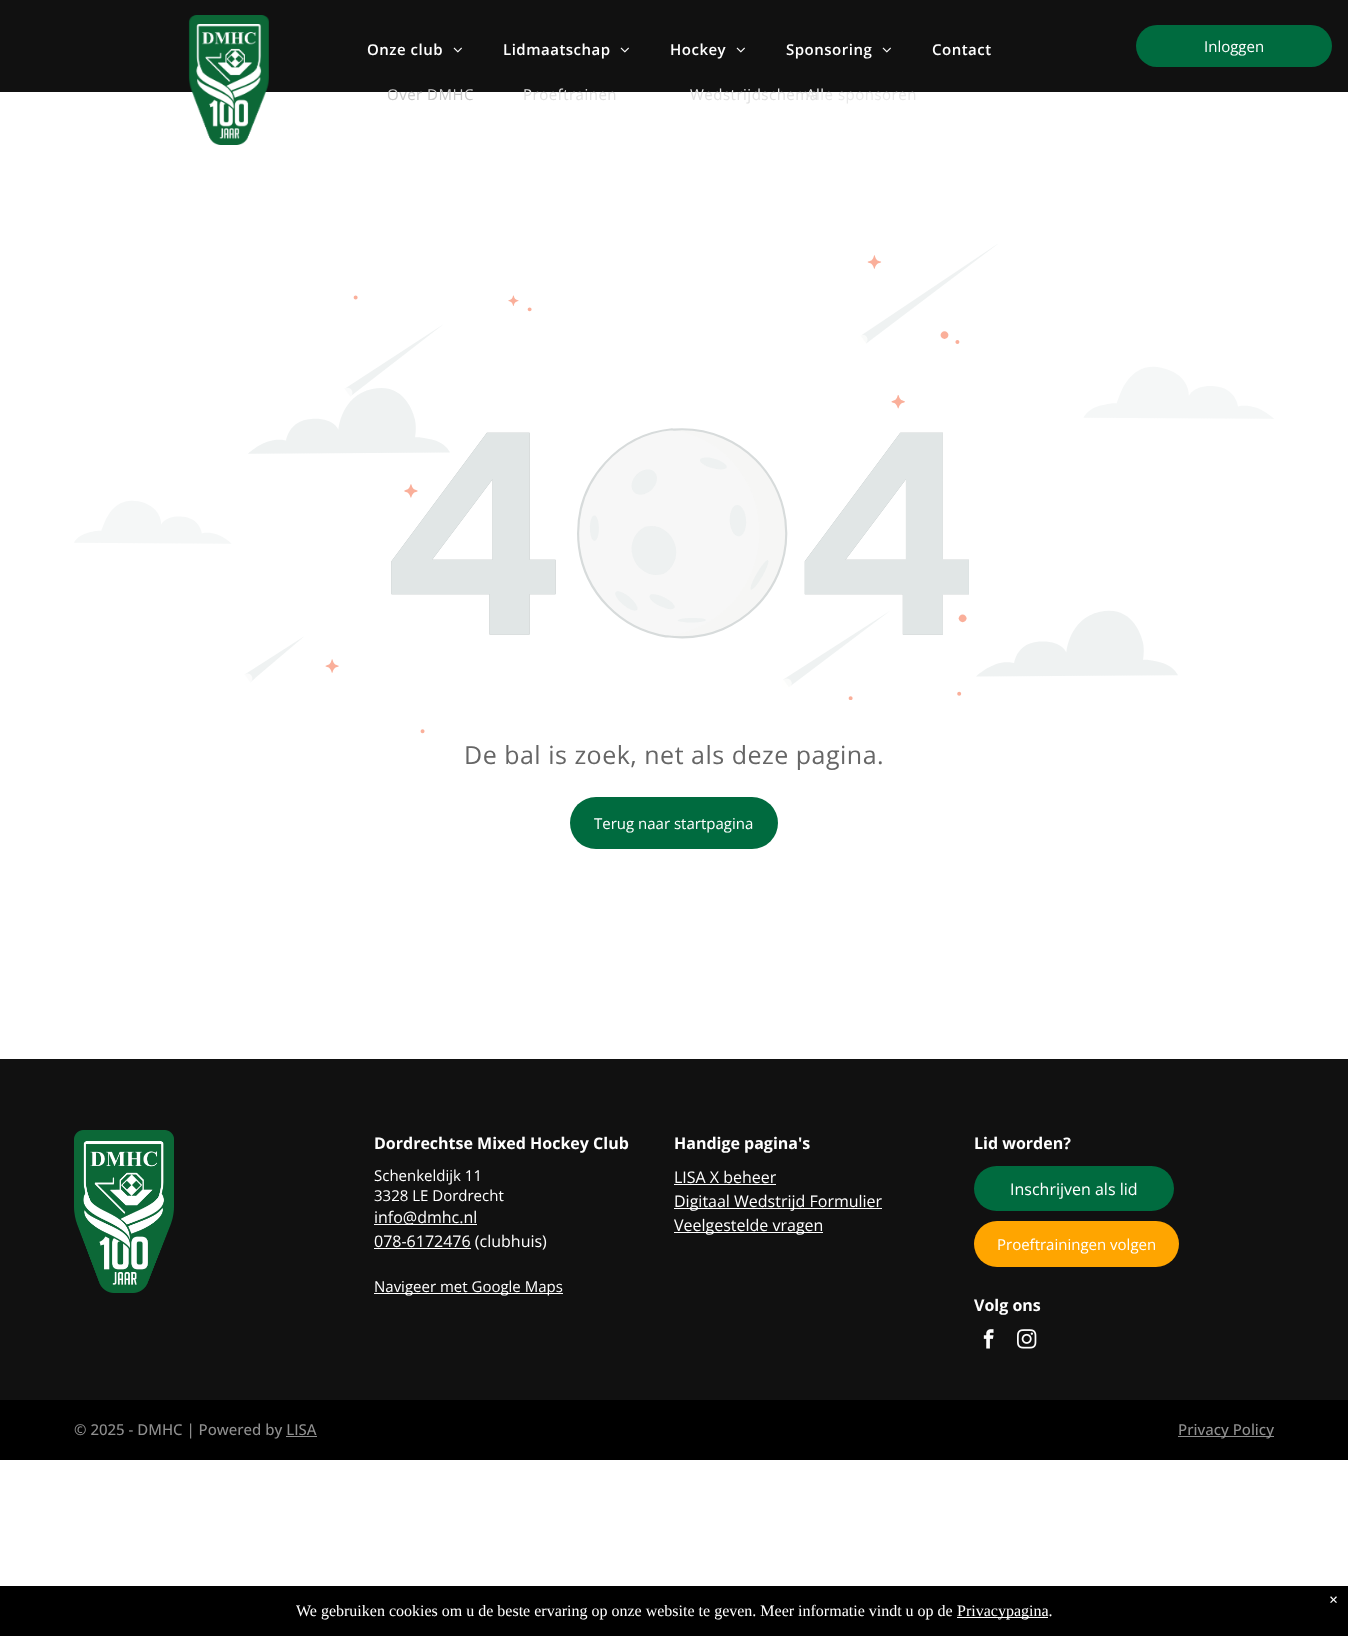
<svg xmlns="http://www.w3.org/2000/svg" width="1348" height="1636">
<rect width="100%" height="100%" fill="#fff"/>
<rect width="1348" height="92" fill="#111"/>
<image x="188" y="15" width="81" height="130" href="media/1.png"/>
<text x="367" y="55" style="font-family:Open Sans;font-size:15px;font-weight:600;letter-spacing:0.5px;fill:#fff">Onze club</text>
<image x="453" y="47" width="9" height="6" href="media/2.png"/>
<text x="387" y="100" style="font-family:Open Sans;font-size:15px;letter-spacing:0.5px;fill:#c8c8c8">Over DMHC</text>
<text x="503" y="55" style="font-family:Open Sans;font-size:15px;font-weight:600;letter-spacing:0.5px;fill:#fff">Lidmaatschap</text>
<image x="620" y="47" width="9" height="6" href="media/2.png"/>
<text x="523" y="100" style="font-family:Open Sans;font-size:15px;letter-spacing:0.5px;fill:#e0e0e0">Proeftrainen</text>
<text x="670" y="55" style="font-family:Open Sans;font-size:15px;font-weight:600;letter-spacing:0.5px;fill:#fff">Hockey</text>
<image x="736" y="47" width="9" height="6" href="media/2.png"/>
<text x="690" y="100" style="font-family:Open Sans;font-size:15px;letter-spacing:0.5px;fill:#e0e0e0">Wedstrijdschema</text>
<text x="786" y="55" style="font-family:Open Sans;font-size:15px;font-weight:600;letter-spacing:0.5px;fill:#fff">Sponsoring</text>
<image x="882" y="47" width="9" height="6" href="media/2.png"/>
<text x="806" y="100" style="font-family:Open Sans;font-size:15px;letter-spacing:0.5px;fill:#e8e8e8">Alle sponsoren</text>
<text x="932" y="55" style="font-family:Open Sans;font-size:15px;font-weight:600;letter-spacing:0.5px;fill:#fff">Contact</text>
<rect x="1136" y="25" width="196" height="42" rx="21" fill="#006b3f"/>
<text x="1204" y="52" style="font-family:Open Sans;font-size:15px;fill:#fff">Inloggen</text>
<image x="74" y="244" width="1200" height="490" href="media/3.png"/>
<text x="464" y="764" style="font-family:Open Sans;font-size:25px;letter-spacing:0.5px;fill:#666">De bal is zoek, net als deze pagina.</text>
<rect x="570" y="797" width="208" height="52" rx="26" fill="#006b3f"/>
<text x="594" y="829" style="font-family:Open Sans;font-size:15px;fill:#fff">Terug naar startpagina</text>
<rect y="1059" width="1348" height="341" fill="#111"/>
<image x="74" y="1130" width="100" height="163" href="media/4.png"/>
<text x="374" y="1149" style="font-family:Open Sans;font-size:16px;font-weight:bold;fill:#fff">Dordrechtse Mixed Hockey Club</text>
<text x="374" y="1181" style="font-family:Open Sans;font-size:15px;fill:#fff">Schenkeldijk 11</text>
<text x="374" y="1201" style="font-family:Open Sans;font-size:15px;fill:#fff">3328 LE Dordrecht</text>
<rect x="374" y="1224" width="103" height="1" fill="#fff"/>
<text x="374" y="1223" style="font-family:Open Sans;font-size:16px;fill:#fff">info@dmhc.nl</text>
<rect x="374" y="1248" width="97" height="1" fill="#fff"/>
<text x="374" y="1247" style="font-family:Open Sans;font-size:16px;fill:#fff">078-6172476 (clubhuis)</text>
<rect x="374" y="1293" width="189" height="1" fill="#fff"/>
<text x="374" y="1292" style="font-family:Open Sans;font-size:15px;fill:#fff">Navigeer met Google Maps</text>
<text x="674" y="1149" style="font-family:Open Sans;font-size:16px;font-weight:bold;fill:#fff">Handige pagina's</text>
<text x="674" y="1183" style="font-family:Open Sans;font-size:16px;fill:#fff">LISA X beheer</text>
<rect x="674" y="1184" width="102" height="1" fill="#fff"/>
<rect x="674" y="1208" width="208" height="1" fill="#fff"/>
<text x="674" y="1207" style="font-family:Open Sans;font-size:16px;fill:#fff">Digitaal Wedstrijd Formulier</text>
<rect x="674" y="1232" width="149" height="1" fill="#fff"/>
<text x="674" y="1231" style="font-family:Open Sans;font-size:16px;fill:#fff">Veelgestelde vragen</text>
<text x="974" y="1149" style="font-family:Open Sans;font-size:16px;font-weight:bold;fill:#fff">Lid worden?</text>
<rect x="974" y="1166" width="200" height="45" rx="22.5" fill="#006b3f"/>
<text x="1010" y="1195" style="font-family:Open Sans;font-size:16px;fill:#fff">Inschrijven als lid</text>
<rect x="974" y="1221" width="205" height="46" rx="23" fill="#ffa500"/>
<text x="997" y="1250" style="font-family:Open Sans;font-size:15px;fill:#fff">Proeftrainingen volgen</text>
<text x="974" y="1311" style="font-family:Open Sans;font-size:16px;font-weight:bold;fill:#fff">Volg ons</text>
<image x="983" y="1329" width="11" height="20" href="media/5.png"/>
<image x="1017" y="1329" width="20" height="20" href="media/6.png"/>
<rect y="1400" width="1348" height="60" fill="#000"/>
<text x="74" y="1435" style="font-family:Open Sans;font-size:15px;font-weight:500;fill:#8f8f8f">© 2025 - DMHC | Powered by LISA</text>
<rect x="286" y="1436" width="31" height="1" fill="#8f8f8f"/>
<rect x="1178" y="1436" width="96" height="1" fill="#8d8d8d"/>
<text x="1178" y="1435" style="font-family:Open Sans;font-size:15px;font-weight:500;fill:#8f8f8f">Privacy Policy</text>
<rect y="1586" width="1348" height="50" fill="#000"/>
<text x="1329" y="1605" style="font-family:Liberation Serif;font-size:16px;font-weight:bold;fill:#fff">×</text>
<text x="296" y="1616" style="font-family:Liberation Serif;font-size:16px;fill:#fff">We gebruiken cookies om u de beste ervaring op onze website te geven. Meer informatie vindt u op de</text>
<rect x="957" y="1617" width="91" height="1" fill="#fff"/>
<text x="957" y="1616" style="font-family:Liberation Serif;font-size:16px;fill:#fff">Privacypagina.</text>
</svg>
